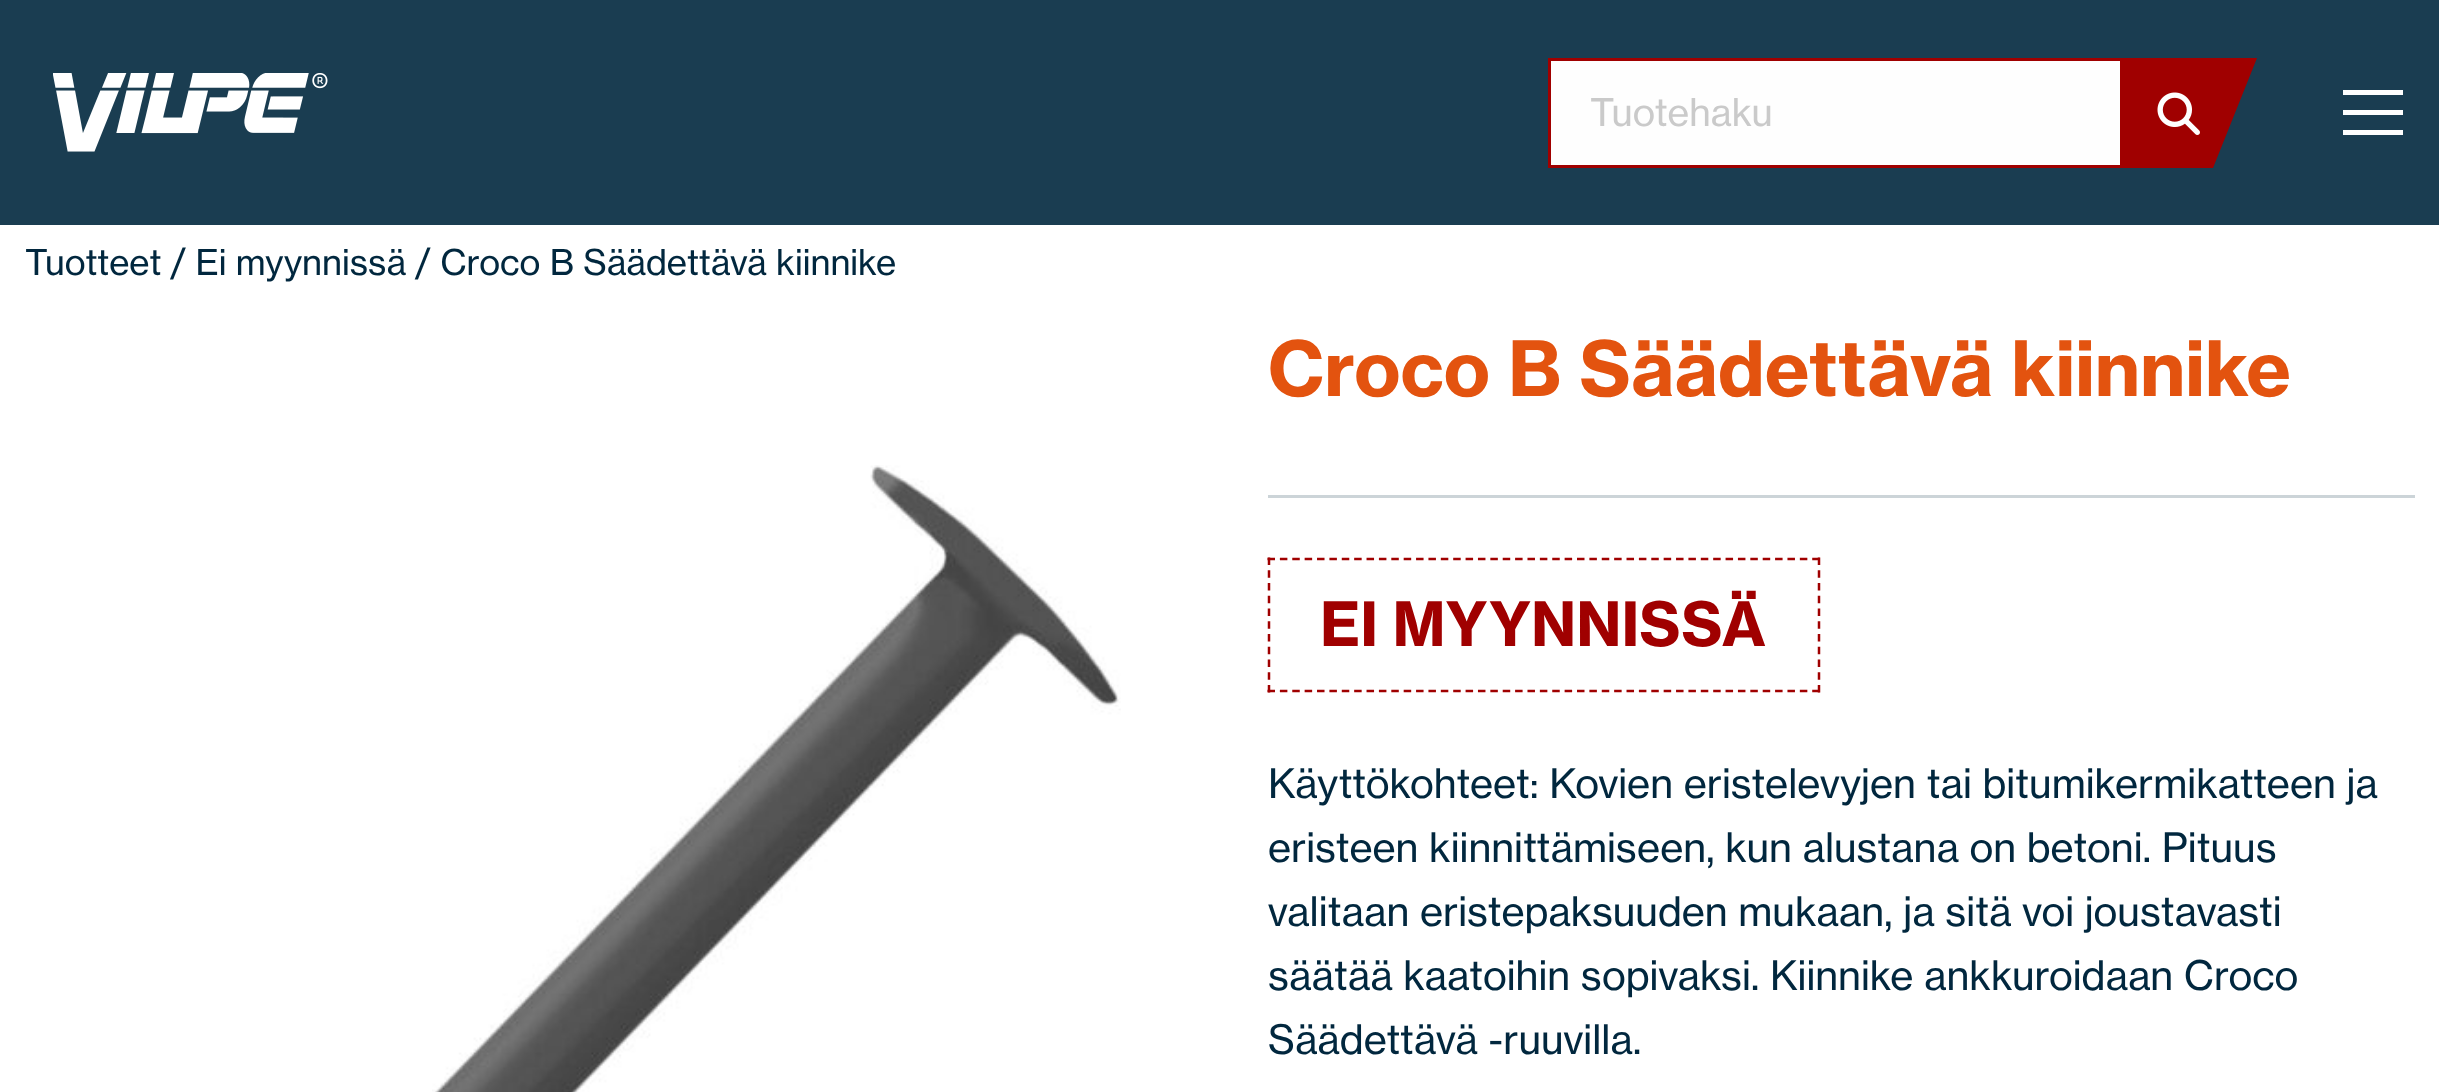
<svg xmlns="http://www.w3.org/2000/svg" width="2439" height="1092">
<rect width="100%" height="100%" fill="#fff"/>
<rect width="2439" height="225" fill="#1a3d51"/>
<image x="53" y="73" width="275" height="79" href="media/1.png"/>
<rect x="1549.5" y="59.5" width="572" height="107" fill="#fefefe" stroke="#a00000" stroke-width="3"/>
<text x="1590" y="126" style="font-family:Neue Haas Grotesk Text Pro;font-size:37.5px;fill:#cacaca">Tuotehaku</text>
<path d="M2123 58h134l-44 110h-90z" fill="#a00000"/>
<image x="2157" y="92" width="43" height="43" href="media/2.png"/>
<rect x="2343" y="130" width="60" height="5" fill="#fefefe"/>
<rect x="2343" y="110" width="60" height="5" fill="#fefefe"/>
<rect x="2343" y="90" width="60" height="5" fill="#fefefe"/>
<text x="25" y="275" style="font-family:Neue Haas Grotesk Text Pro;font-size:35px;fill:#01273e">Tuotteet / Ei myynnissä / Croco B Säädettävä kiinnike</text>
<image x="432" y="465" width="689" height="627" href="media/3.png"/>
<rect x="1268" y="495" width="1147" height="3" fill="#ccd4d8"/>
<text x="1268" y="396" style="font-family:Neue Haas Grotesk Text Pro;font-size:75px;font-weight:bold;fill:#e3530f">Croco B Säädettävä kiinnike</text>
<path d="M1267.5 559h552.5" fill="none" stroke="#a00000" stroke-width="2.5" stroke-dasharray="7.5 4.88"/>
<path d="M1819 557.5v135" fill="none" stroke="#a00000" stroke-width="2.5" stroke-dasharray="7.5 5.25"/>
<path d="M1267.5 691h552.5" fill="none" stroke="#a00000" stroke-width="2.5" stroke-dasharray="7.5 4.88"/>
<path d="M1269 557.5v135" fill="none" stroke="#a00000" stroke-width="2.5" stroke-dasharray="7.5 5.25"/>
<text x="1320" y="646" style="font-family:Neue Haas Grotesk Text Pro;font-size:60px;font-weight:bold;fill:#a00000">EI MYYNNISSÄ</text>
<text x="1268" y="798" style="font-family:Neue Haas Grotesk Text Pro;font-size:40px;fill:#01273e">Käyttökohteet: Kovien eristelevyjen tai bitumikermikatteen ja</text>
<text x="1268" y="862" style="font-family:Neue Haas Grotesk Text Pro;font-size:40px;fill:#01273e">eristeen kiinnittämiseen, kun alustana on betoni. Pituus</text>
<text x="1268" y="926" style="font-family:Neue Haas Grotesk Text Pro;font-size:40px;fill:#01273e">valitaan eristepaksuuden mukaan, ja sitä voi joustavasti</text>
<text x="1268" y="990" style="font-family:Neue Haas Grotesk Text Pro;font-size:40px;fill:#01273e">säätää kaatoihin sopivaksi. Kiinnike ankkuroidaan Croco</text>
<text x="1268" y="1054" style="font-family:Neue Haas Grotesk Text Pro;font-size:40px;fill:#01273e">Säädettävä -ruuvilla.</text>
</svg>
